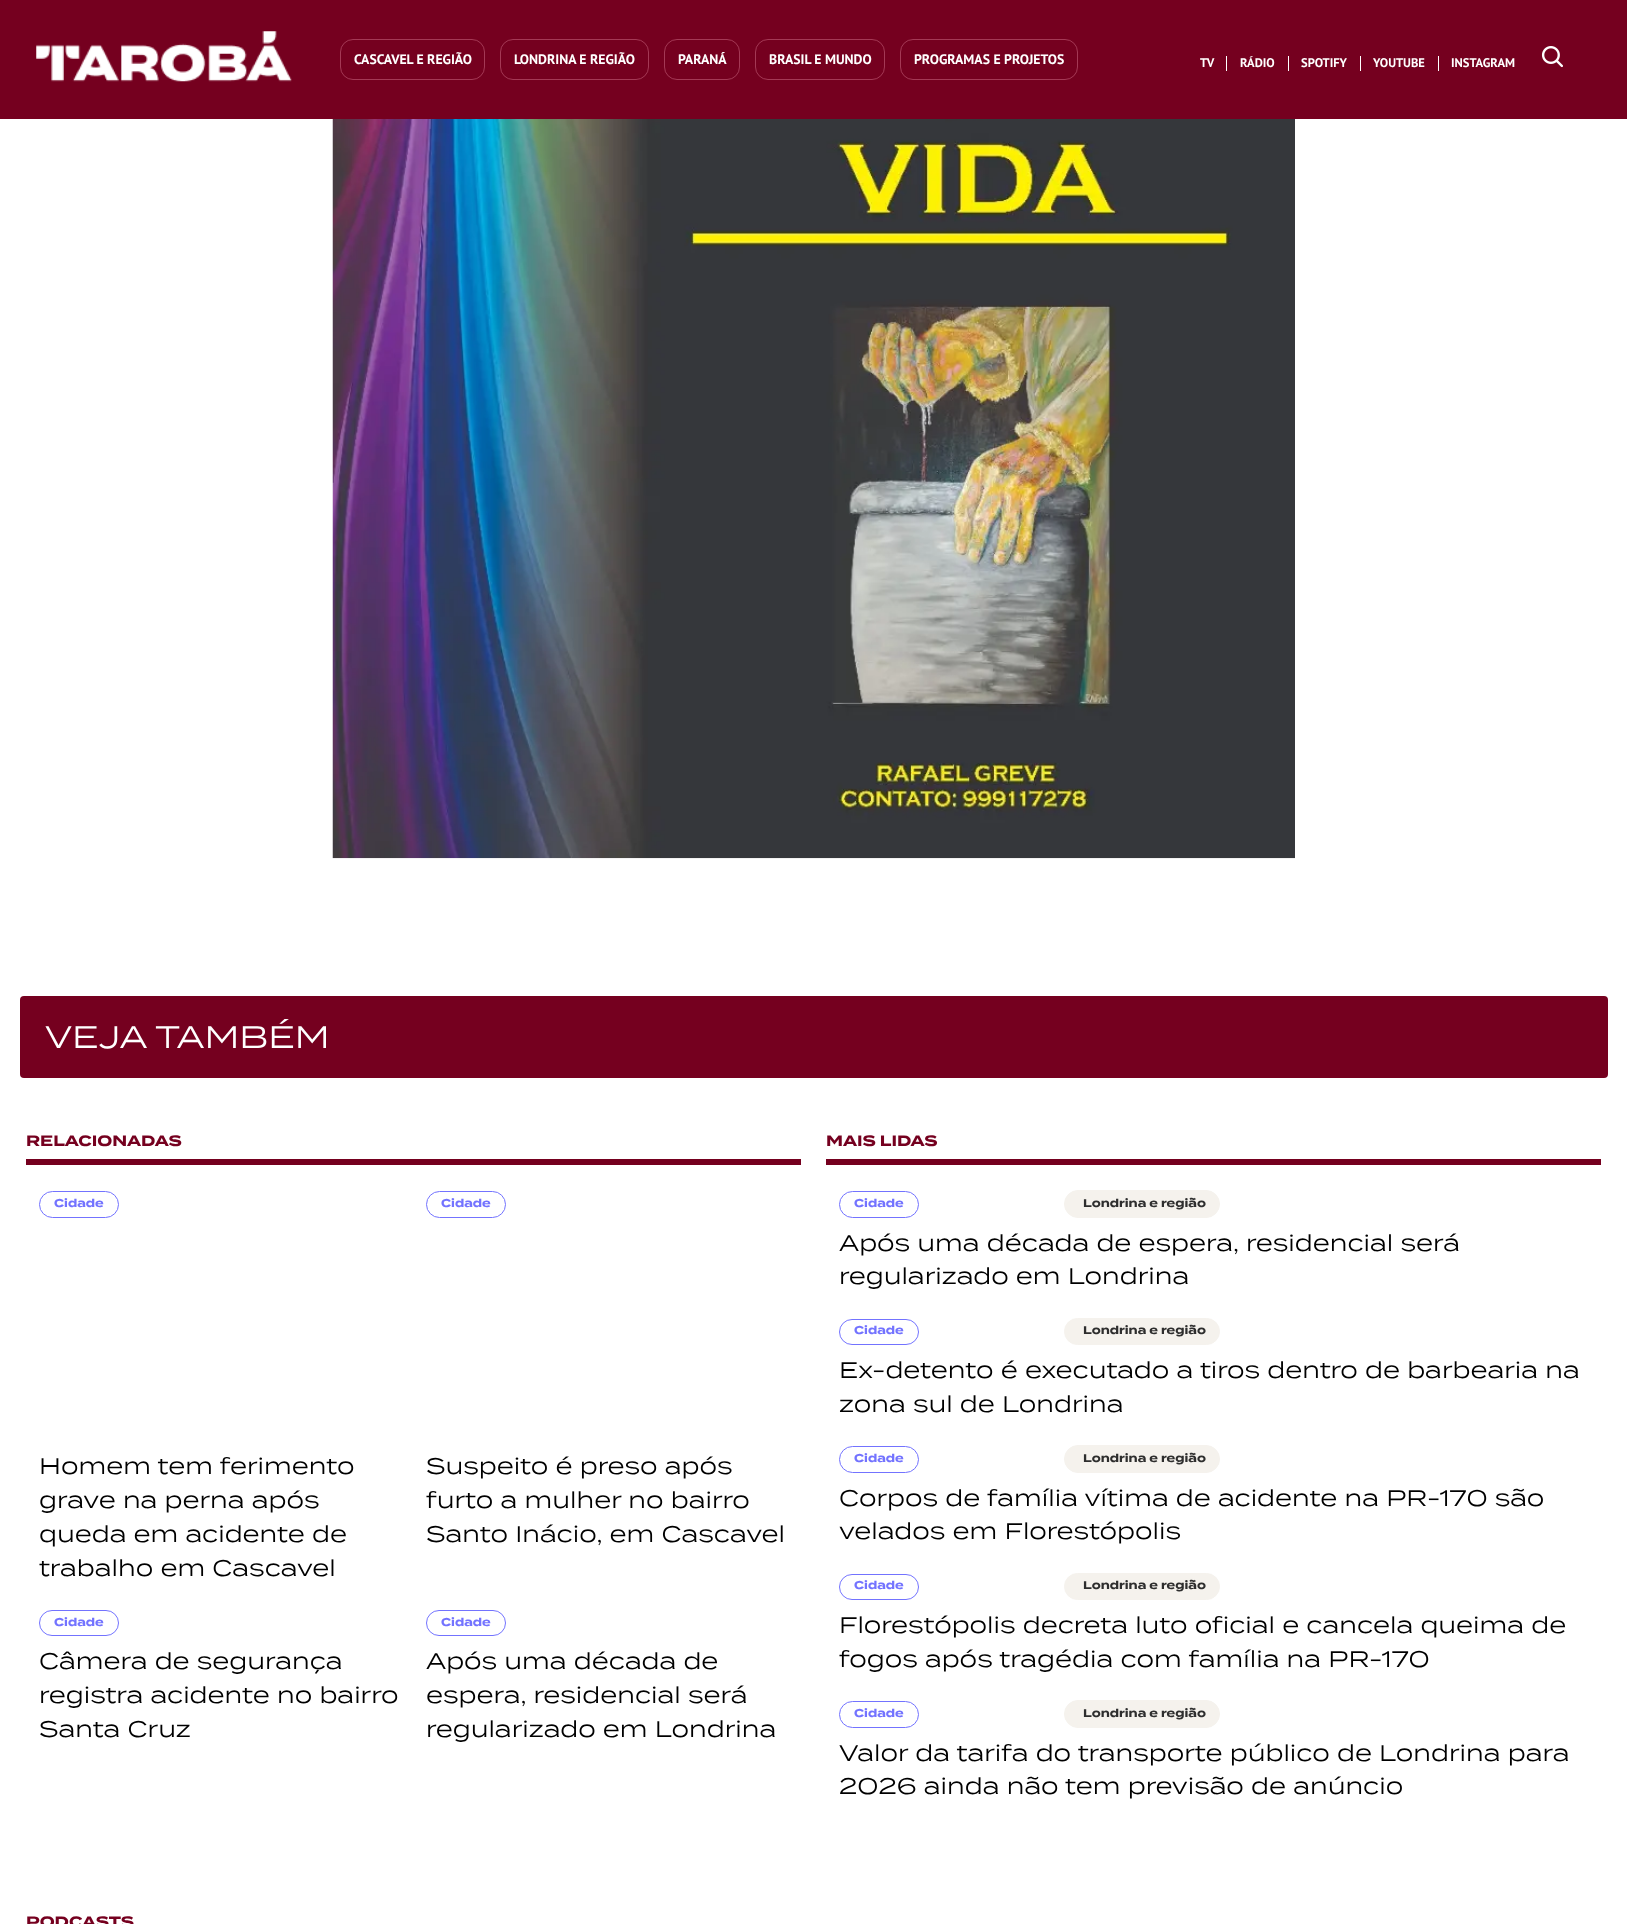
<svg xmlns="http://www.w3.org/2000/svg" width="1627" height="1924">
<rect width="100%" height="100%" fill="#fff"/>
<rect width="1627" height="119" fill="#75001f"/>
<image x="36" y="31" width="256" height="51" href="media/1.png"/>
<rect x="340.5" y="39.5" width="144" height="40" rx="12.5" fill="none" stroke="#a43955"/>
<text x="354" y="64" style="font-family:PT Sans;font-size:13.75px;font-weight:bold;fill:#fff">CASCAVEL E REGIÃO</text>
<rect x="500.5" y="39.5" width="148" height="40" rx="12.5" fill="none" stroke="#a43955"/>
<text x="514" y="64" style="font-family:PT Sans;font-size:13.75px;font-weight:bold;fill:#fff">LONDRINA E REGIÃO</text>
<rect x="664.5" y="39.5" width="75" height="40" rx="12.5" fill="none" stroke="#a43955"/>
<text x="678" y="64" style="font-family:PT Sans;font-size:13.75px;font-weight:bold;fill:#fff">PARANÁ</text>
<rect x="755.5" y="39.5" width="129" height="40" rx="12.5" fill="none" stroke="#a43955"/>
<text x="769" y="64" style="font-family:PT Sans;font-size:13.75px;font-weight:bold;fill:#fff">BRASIL E MUNDO</text>
<rect x="900.5" y="39.5" width="177" height="40" rx="12.5" fill="none" stroke="#a43955"/>
<text x="914" y="64" style="font-family:PT Sans;font-size:13.75px;font-weight:bold;fill:#fff">PROGRAMAS E PROJETOS</text>
<rect x="1226" y="56" width="1" height="15" fill="#fff"/>
<text x="1200" y="67" style="font-family:PT Sans;font-size:12.5px;font-weight:bold;fill:#fff">TV</text>
<rect x="1288" y="56" width="1" height="15" fill="#fff"/>
<text x="1240" y="67" style="font-family:PT Sans;font-size:12.5px;font-weight:bold;fill:#fff">RÁDIO</text>
<rect x="1360" y="56" width="1" height="15" fill="#fff"/>
<text x="1301" y="67" style="font-family:PT Sans;font-size:12.5px;font-weight:bold;fill:#fff">SPOTIFY</text>
<rect x="1438" y="56" width="1" height="15" fill="#fff"/>
<text x="1373" y="67" style="font-family:PT Sans;font-size:12.5px;font-weight:bold;fill:#fff">YOUTUBE</text>
<text x="1451" y="67" style="font-family:PT Sans;font-size:12.5px;font-weight:bold;fill:#fff">INSTAGRAM</text>
<image x="1541" y="46" width="22" height="22" href="media/2.png"/>
<image x="332" y="119" width="963" height="740" href="media/3.png"/>
<rect x="20" y="996" width="1588" height="82" rx="4" fill="#75001f"/>
<text x="45" y="1048" style="font-family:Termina;font-size:31.25px;fill:#fff">VEJA TAMBÉM</text>
<rect x="26" y="1159" width="775" height="6" fill="#75001f"/>
<text x="26" y="1146" style="font-family:Termina;font-size:15px;font-weight:bold;fill:#75001f">RELACIONADAS</text>
<rect x="39.5" y="1191.5" width="79" height="26" rx="13" fill="none" stroke="#7373ff"/>
<text x="54" y="1207" style="font-family:Termina;font-size:11.25px;font-weight:bold;fill:#7373ff">Cidade</text>
<text x="39" y="1474" style="font-family:Termina;font-size:22.5px;fill:#000">Homem tem ferimento</text>
<text x="39" y="1508" style="font-family:Termina;font-size:22.5px;fill:#000">grave na perna após</text>
<text x="39" y="1542" style="font-family:Termina;font-size:22.5px;fill:#000">queda em acidente de</text>
<text x="39" y="1576" style="font-family:Termina;font-size:22.5px;fill:#000">trabalho em Cascavel</text>
<rect x="426.5" y="1191.5" width="79" height="26" rx="13" fill="none" stroke="#7373ff"/>
<text x="441" y="1207" style="font-family:Termina;font-size:11.25px;font-weight:bold;fill:#7373ff">Cidade</text>
<text x="426" y="1474" style="font-family:Termina;font-size:22.5px;fill:#000">Suspeito é preso após</text>
<text x="426" y="1508" style="font-family:Termina;font-size:22.5px;fill:#000">furto a mulher no bairro</text>
<text x="426" y="1542" style="font-family:Termina;font-size:22.5px;fill:#000">Santo Inácio, em Cascavel</text>
<rect x="39.5" y="1610.5" width="79" height="25" rx="12.5" fill="none" stroke="#7373ff"/>
<text x="54" y="1626" style="font-family:Termina;font-size:11.25px;font-weight:bold;fill:#7373ff">Cidade</text>
<text x="39" y="1669" style="font-family:Termina;font-size:22.5px;fill:#000">Câmera de segurança</text>
<text x="39" y="1703" style="font-family:Termina;font-size:22.5px;fill:#000">registra acidente no bairro</text>
<text x="39" y="1737" style="font-family:Termina;font-size:22.5px;fill:#000">Santa Cruz</text>
<rect x="426.5" y="1610.5" width="79" height="25" rx="12.5" fill="none" stroke="#7373ff"/>
<text x="441" y="1626" style="font-family:Termina;font-size:11.25px;font-weight:bold;fill:#7373ff">Cidade</text>
<text x="426" y="1669" style="font-family:Termina;font-size:22.5px;fill:#000">Após uma década de</text>
<text x="426" y="1703" style="font-family:Termina;font-size:22.5px;fill:#000">espera, residencial será</text>
<text x="426" y="1737" style="font-family:Termina;font-size:22.5px;fill:#000">regularizado em Londrina</text>
<rect x="826" y="1159" width="775" height="6" fill="#75001f"/>
<text x="826" y="1146" style="font-family:Termina;font-size:15px;font-weight:bold;fill:#75001f">MAIS LIDAS</text>
<rect x="839.5" y="1191.5" width="79" height="26" rx="13" fill="none" stroke="#7373ff"/>
<text x="854" y="1207" style="font-family:Termina;font-size:11.25px;font-weight:bold;fill:#7373ff">Cidade</text>
<rect x="1064.5" y="1190.5" width="155" height="27" rx="13.5" fill="#f5f2ed" stroke="#f5f2ed"/>
<text x="1083" y="1207" style="font-family:Termina;font-size:11.25px;font-weight:bold;fill:#2e2e2e">Londrina e região</text>
<text x="839" y="1251" style="font-family:Termina;font-size:22.5px;fill:#000">Após uma década de espera, residencial será</text>
<text x="839" y="1284" style="font-family:Termina;font-size:22.5px;fill:#000">regularizado em Londrina</text>
<rect x="839.5" y="1319.5" width="79" height="25" rx="12.5" fill="none" stroke="#7373ff"/>
<text x="854" y="1334" style="font-family:Termina;font-size:11.25px;font-weight:bold;fill:#7373ff">Cidade</text>
<rect x="1064.5" y="1318.5" width="155" height="26" rx="13" fill="#f5f2ed" stroke="#f5f2ed"/>
<text x="1083" y="1334" style="font-family:Termina;font-size:11.25px;font-weight:bold;fill:#2e2e2e">Londrina e região</text>
<text x="839" y="1378" style="font-family:Termina;font-size:22.5px;fill:#000">Ex-detento é executado a tiros dentro de barbearia na</text>
<text x="839" y="1412" style="font-family:Termina;font-size:22.5px;fill:#000">zona sul de Londrina</text>
<rect x="839.5" y="1446.5" width="79" height="26" rx="13" fill="none" stroke="#7373ff"/>
<text x="854" y="1462" style="font-family:Termina;font-size:11.25px;font-weight:bold;fill:#7373ff">Cidade</text>
<rect x="1064.5" y="1445.5" width="155" height="27" rx="13.5" fill="#f5f2ed" stroke="#f5f2ed"/>
<text x="1083" y="1462" style="font-family:Termina;font-size:11.25px;font-weight:bold;fill:#2e2e2e">Londrina e região</text>
<text x="839" y="1506" style="font-family:Termina;font-size:22.5px;fill:#000">Corpos de família vítima de acidente na PR-170 são</text>
<text x="839" y="1539" style="font-family:Termina;font-size:22.5px;fill:#000">velados em Florestópolis</text>
<rect x="839.5" y="1574.5" width="79" height="25" rx="12.5" fill="none" stroke="#7373ff"/>
<text x="854" y="1589" style="font-family:Termina;font-size:11.25px;font-weight:bold;fill:#7373ff">Cidade</text>
<rect x="1064.5" y="1573.5" width="155" height="26" rx="13" fill="#f5f2ed" stroke="#f5f2ed"/>
<text x="1083" y="1589" style="font-family:Termina;font-size:11.25px;font-weight:bold;fill:#2e2e2e">Londrina e região</text>
<text x="839" y="1633" style="font-family:Termina;font-size:22.5px;fill:#000">Florestópolis decreta luto oficial e cancela queima de</text>
<text x="839" y="1667" style="font-family:Termina;font-size:22.5px;fill:#000">fogos após tragédia com família na PR-170</text>
<rect x="839.5" y="1701.5" width="79" height="26" rx="13" fill="none" stroke="#7373ff"/>
<text x="854" y="1717" style="font-family:Termina;font-size:11.25px;font-weight:bold;fill:#7373ff">Cidade</text>
<rect x="1064.5" y="1700.5" width="155" height="27" rx="13.5" fill="#f5f2ed" stroke="#f5f2ed"/>
<text x="1083" y="1717" style="font-family:Termina;font-size:11.25px;font-weight:bold;fill:#2e2e2e">Londrina e região</text>
<text x="839" y="1761" style="font-family:Termina;font-size:22.5px;fill:#000">Valor da tarifa do transporte público de Londrina para</text>
<text x="839" y="1794" style="font-family:Termina;font-size:22.5px;fill:#000">2026 ainda não tem previsão de anúncio</text>
<text x="26" y="1927" style="font-family:Termina;font-size:15px;font-weight:bold;fill:#75001f">PODCASTS</text>
</svg>
